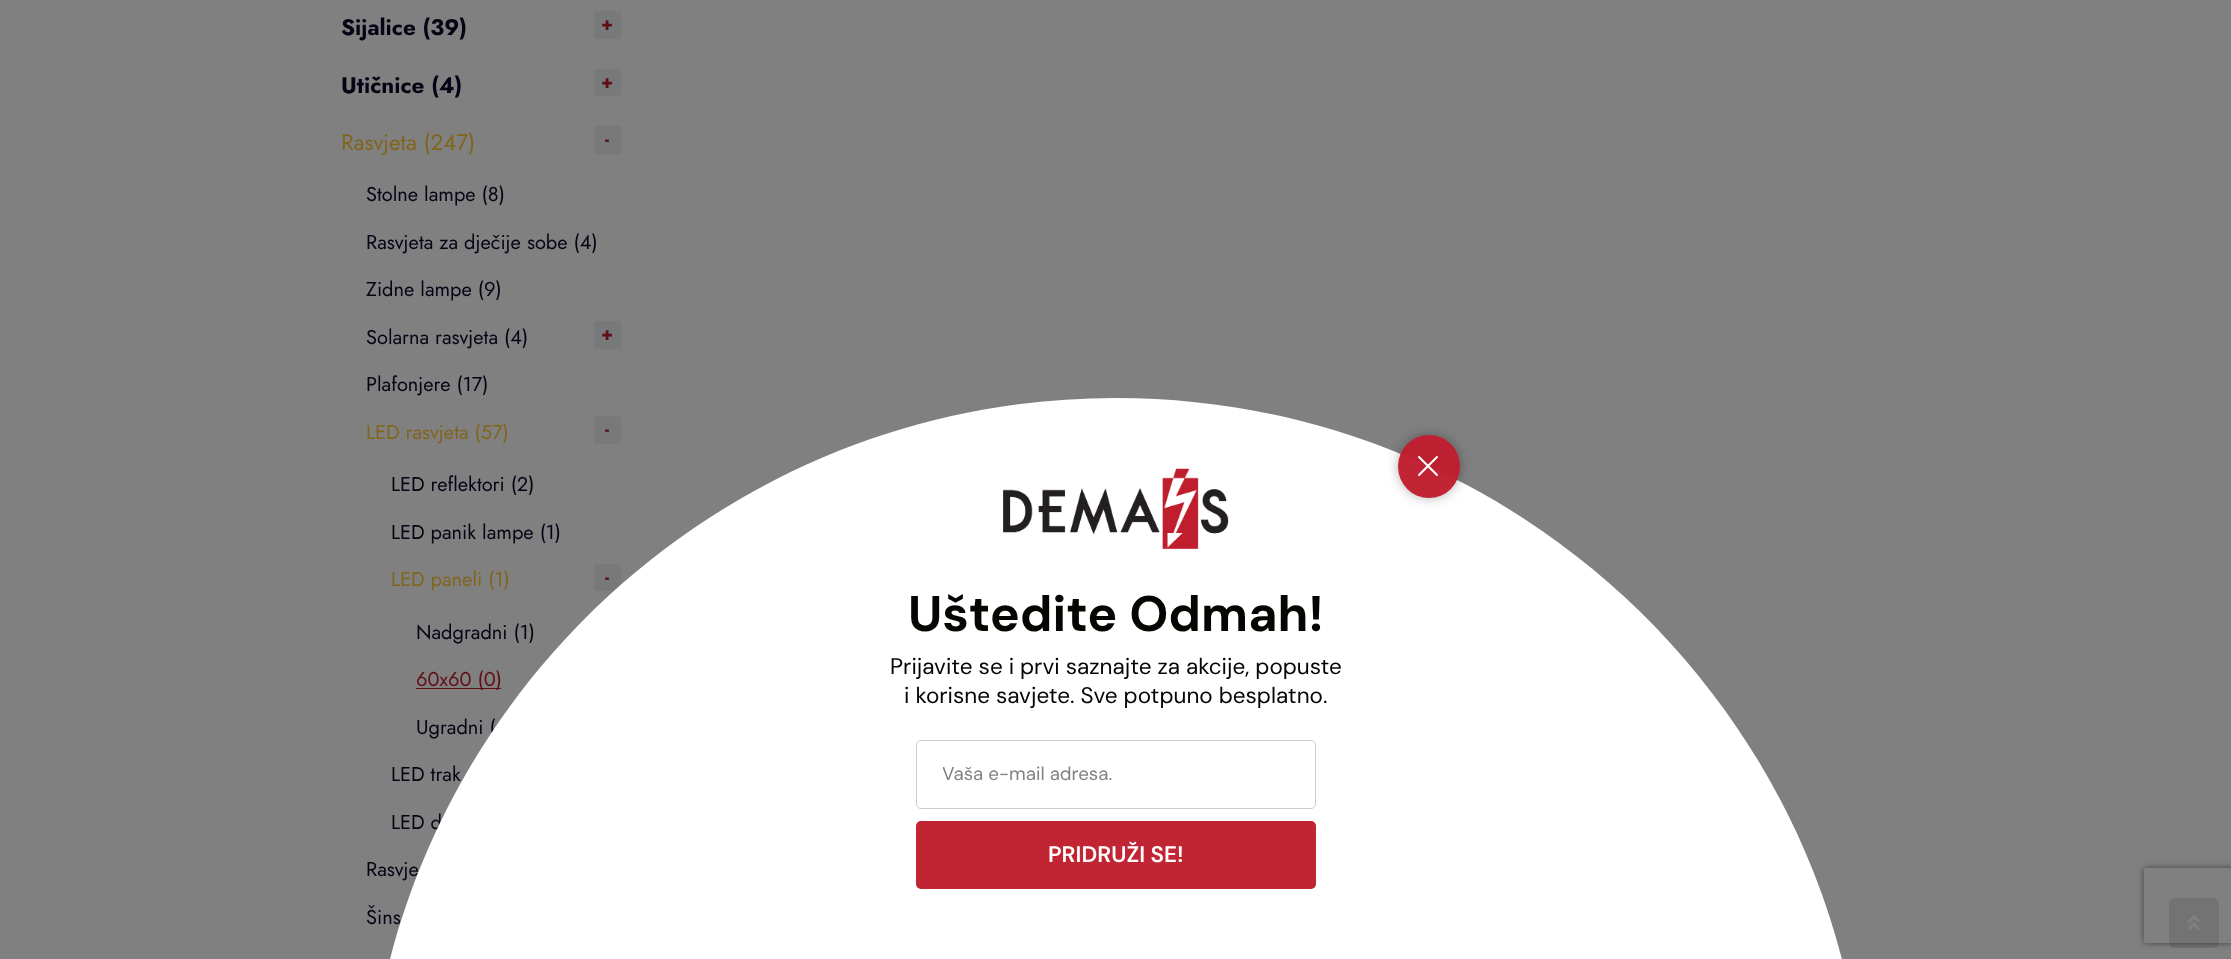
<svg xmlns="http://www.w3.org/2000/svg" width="2231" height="959">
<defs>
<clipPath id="clip1"><path d="M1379 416h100v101h-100zm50 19c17 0 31 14 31 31v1c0 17-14 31-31 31c-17 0-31-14-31-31v-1c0-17 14-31 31-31z" clip-rule="evenodd"/></clipPath>
<clipPath id="clip2"><rect x="943" y="761" width="347" height="25"/></clipPath>
<clipPath id="clip3"><path d="M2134 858h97v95h-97zm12.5 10h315c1.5 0 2.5 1 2.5 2.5v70c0 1.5-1 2.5-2.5 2.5h-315c-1.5 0-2.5-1-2.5-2.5v-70c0-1.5 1-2.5 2.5-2.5z" clip-rule="evenodd"/></clipPath>
</defs>
<rect width="100%" height="100%" fill="#808080"/>
<text x="341" y="35" style="font-family:Jost;font-size:22.5px;font-weight:bold;fill:#070314">Sijalice (39)</text>
<rect x="594" y="11" width="27" height="28" rx="2.5" fill="#78797b"/>
<text x="601" y="30" style="font-family:Jost;font-size:18px;font-weight:bold;fill:#600f17">+</text>
<text x="341" y="93" style="font-family:Jost;font-size:22.5px;font-weight:bold;fill:#070314">Utičnice (4)</text>
<rect x="594" y="69" width="27" height="27" rx="2.5" fill="#78797b"/>
<text x="601" y="88" style="font-family:Jost;font-size:18px;font-weight:bold;fill:#600f17">+</text>
<text x="341" y="150" style="font-family:Jost;font-size:22.5px;fill:#80651d">Rasvjeta (247)</text>
<rect x="594" y="126" width="27" height="28" rx="2.5" fill="#78797b"/>
<text x="605" y="145" style="font-family:Jost;font-size:18px;font-weight:bold;fill:#600f17">-</text>
<text x="366" y="201" style="font-family:Jost;font-size:20px;fill:#070314">Stolne lampe (8)</text>
<text x="366" y="249" style="font-family:Jost;font-size:20px;fill:#070314">Rasvjeta za dječije sobe (4)</text>
<text x="366" y="296" style="font-family:Jost;font-size:20px;fill:#070314">Zidne lampe (9)</text>
<text x="366" y="344" style="font-family:Jost;font-size:20px;fill:#070314">Solarna rasvjeta (4)</text>
<rect x="594" y="321" width="27" height="28" rx="2.5" fill="#78797b"/>
<text x="601" y="340" style="font-family:Jost;font-size:18px;font-weight:bold;fill:#600f17">+</text>
<text x="366" y="391" style="font-family:Jost;font-size:20px;fill:#070314">Plafonjere (17)</text>
<text x="366" y="439" style="font-family:Jost;font-size:20px;fill:#80651d">LED rasvjeta (57)</text>
<rect x="594" y="416" width="27" height="28" rx="2.5" fill="#78797b"/>
<text x="605" y="435" style="font-family:Jost;font-size:18px;font-weight:bold;fill:#600f17">-</text>
<text x="391" y="491" style="font-family:Jost;font-size:20px;fill:#070314">LED reflektori (2)</text>
<text x="391" y="539" style="font-family:Jost;font-size:20px;fill:#070314">LED panik lampe (1)</text>
<text x="391" y="586" style="font-family:Jost;font-size:20px;fill:#80651d">LED paneli (1)</text>
<rect x="594" y="564" width="27" height="27" rx="2.5" fill="#78797b"/>
<text x="605" y="583" style="font-family:Jost;font-size:18px;font-weight:bold;fill:#600f17">-</text>
<text x="416" y="639" style="font-family:Jost;font-size:20px;fill:#070314">Nadgradni (1)</text>
<rect x="416" y="688" width="85" height="1" fill="#600f17"/>
<text x="416" y="686" style="font-family:Jost;font-size:20px;fill:#600f17">60x60 (0)</text>
<text x="416" y="734" style="font-family:Jost;font-size:20px;fill:#070314">Ugradni (</text>
<text x="391" y="781" style="font-family:Jost;font-size:20px;fill:#070314">LED trak</text>
<text x="391" y="829" style="font-family:Jost;font-size:20px;fill:#070314">LED d</text>
<text x="366" y="876" style="font-family:Jost;font-size:20px;fill:#070314">Rasvje</text>
<text x="366" y="924" style="font-family:Jost;font-size:20px;fill:#070314">Šins</text>
<path d="M1116 398c414 0 750 336 750 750v-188h-1500v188c0-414 336-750 750-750z" fill="#fff"/>
<g clip-path="url(#clip1)">
<rect x="1398" y="435" width="62" height="63" rx="31" fill="#0000004d" filter="blur(6px)"/>
</g>
<rect x="1398" y="435" width="62" height="63" rx="31" fill="#bf1d2df7"/>
<path d="M1419 457l18 18m0-18l-18 18" fill="none" stroke="#fff" stroke-width="2.1" stroke-linecap="round"/>
<image x="1003" y="468" width="226" height="81" href="media/1.png"/>
<text x="908" y="631" style="font-family:DM Sans;font-size:50px;font-weight:bold;fill:#060502">Uštedite Odmah!</text>
<text x="890" y="674" style="font-family:DM Sans;font-size:22.5px;fill:#060502">Prijavite se i prvi saznajte za akcije, popuste</text>
<text x="904" y="703" style="font-family:DM Sans;font-size:22.5px;fill:#060502">i korisne savjete. Sve potpuno besplatno.</text>
<rect x="916.5" y="740.5" width="399" height="68" rx="4.5" fill="none" stroke="#ccc"/>
<g clip-path="url(#clip2)">
<text x="942" y="780" style="font-family:DM Sans;font-size:18.75px;fill:#838281">Vaša e-mail adresa.</text>
</g>
<rect x="916" y="821" width="400" height="68" rx="5" fill="#c12433"/>
<text x="1048" y="862" style="font-family:DM Sans;font-size:22.5px;font-weight:600;fill:#fff">PRIDRUŽI SE!</text>
<g clip-path="url(#clip3)">
<rect x="2144" y="868" width="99" height="75" rx="2.5" fill="#404040" filter="blur(3px)"/>
</g>
<rect x="2169" y="898" width="50" height="50" rx="5" fill="#0000001a"/>
<image x="2187" y="915" width="13" height="16" href="media/2.png"/>
</svg>
